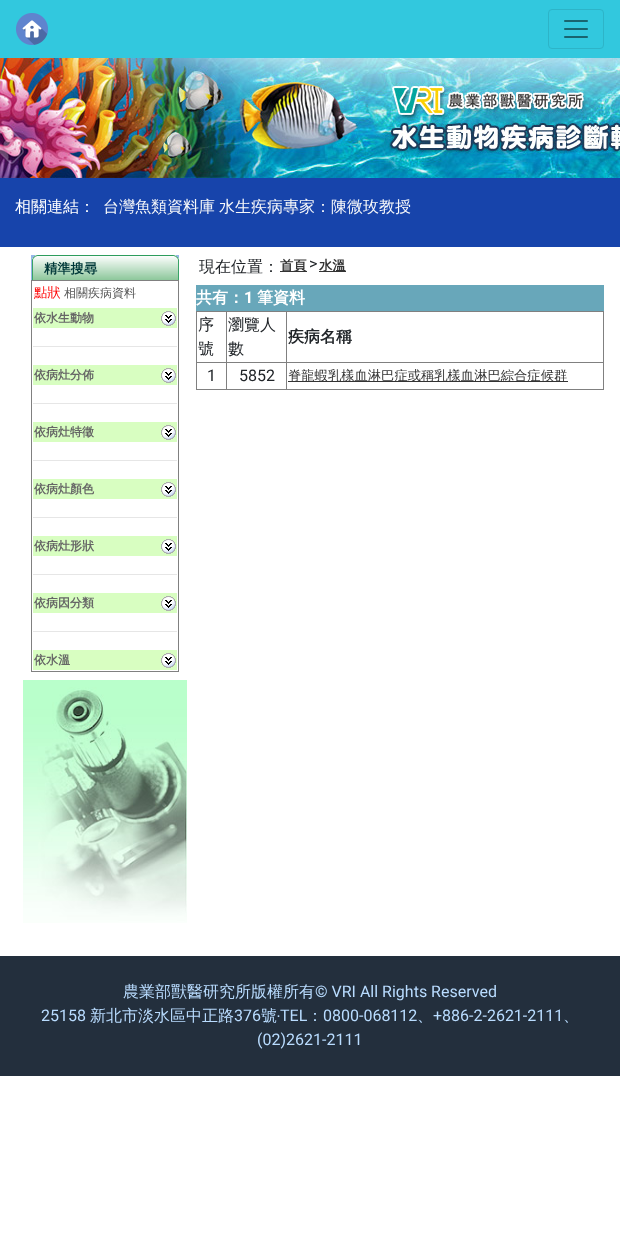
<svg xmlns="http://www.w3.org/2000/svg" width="620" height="1234">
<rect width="100%" height="100%" fill="#fff"/>
<rect width="620" height="58" fill="#32c8de"/>
<image x="16" y="13" width="32" height="32" href="media/1.png"/>
<rect x="548.5" y="9.5" width="55" height="39" rx="3.5" fill="none" stroke="#2db4c8"/>
<image x="564" y="20" width="24" height="18" href="media/2.png"/>
<image x="0" y="58" width="620" height="120" href="media/3.png"/>
<rect y="178" width="620" height="69" fill="#1744ab"/>
<text x="15" y="212" style="font-family:WenQuanYi Zen Hei;font-size:16px;font-weight:500;fill:#fff">相關連結：</text>
<text x="103" y="212" style="font-family:WenQuanYi Zen Hei;font-size:16px;font-weight:500;fill:#f8f9fa">台灣魚類資料庫</text>
<text x="219" y="212" style="font-family:WenQuanYi Zen Hei;font-size:16px;font-weight:500;fill:#f8f9fa">水生疾病專家：陳微玫教授</text>
<rect x="31" y="255" width="148" height="25" fill="#95b7e8"/>
<image x="32" y="255" width="7" height="25" href="media/4.png"/>
<image x="39" y="255" width="133" height="25" href="media/5.png"/>
<text x="44" y="273" style="font-family:WenQuanYi Zen Hei;font-size:13.3px;font-weight:bold;fill:#003939">精準搜尋</text>
<image x="172" y="255" width="7" height="25" href="media/6.png"/>
<rect x="31" y="280" width="148" height="1" fill="#808080"/>
<rect x="178" y="280" width="1" height="392" fill="#808080"/>
<rect x="31" y="671" width="148" height="1" fill="#808080"/>
<rect x="31" y="280" width="1" height="392" fill="#808080"/>
<text x="34" y="297" style="font-family:WenQuanYi Zen Hei;font-size:13.3px;font-weight:500;fill:#f00">點狀</text>
<text x="64" y="297" style="font-family:WenQuanYi Zen Hei;font-size:12px;font-weight:500;fill:#555">相關疾病資料</text>
<rect x="33" y="308" width="144" height="20" fill="#d8fec1"/>
<text x="34" y="322" style="font-family:WenQuanYi Zen Hei;font-size:12px;font-weight:bold;fill:#666">依水生動物</text>
<image x="161" y="311" width="15" height="15" href="media/7.png"/>
<rect x="33" y="346" width="144" height="1" fill="#e6e6e6"/>
<rect x="33" y="365" width="144" height="20" fill="#d8fec1"/>
<text x="34" y="379" style="font-family:WenQuanYi Zen Hei;font-size:12px;font-weight:bold;fill:#666">依病灶分佈</text>
<image x="161" y="368" width="15" height="15" href="media/7.png"/>
<rect x="33" y="403" width="144" height="1" fill="#e6e6e6"/>
<rect x="33" y="422" width="144" height="20" fill="#d8fec1"/>
<text x="34" y="436" style="font-family:WenQuanYi Zen Hei;font-size:12px;font-weight:bold;fill:#666">依病灶特徵</text>
<image x="161" y="425" width="15" height="15" href="media/7.png"/>
<rect x="33" y="460" width="144" height="1" fill="#e6e6e6"/>
<rect x="33" y="479" width="144" height="20" fill="#d8fec1"/>
<text x="34" y="493" style="font-family:WenQuanYi Zen Hei;font-size:12px;font-weight:bold;fill:#666">依病灶顏色</text>
<image x="161" y="482" width="15" height="15" href="media/7.png"/>
<rect x="33" y="517" width="144" height="1" fill="#e6e6e6"/>
<rect x="33" y="536" width="144" height="20" fill="#d8fec1"/>
<text x="34" y="550" style="font-family:WenQuanYi Zen Hei;font-size:12px;font-weight:bold;fill:#666">依病灶形狀</text>
<image x="161" y="539" width="15" height="15" href="media/7.png"/>
<rect x="33" y="574" width="144" height="1" fill="#e6e6e6"/>
<rect x="33" y="593" width="144" height="20" fill="#d8fec1"/>
<text x="34" y="607" style="font-family:WenQuanYi Zen Hei;font-size:12px;font-weight:bold;fill:#666">依病因分類</text>
<image x="161" y="596" width="15" height="15" href="media/7.png"/>
<rect x="33" y="631" width="144" height="1" fill="#e6e6e6"/>
<rect x="33" y="650" width="144" height="20" fill="#d8fec1"/>
<text x="34" y="664" style="font-family:WenQuanYi Zen Hei;font-size:12px;font-weight:bold;fill:#666">依水溫</text>
<image x="161" y="653" width="15" height="15" href="media/7.png"/>
<image x="23" y="680" width="164" height="243" href="media/8.png"/>
<text x="199" y="272" style="font-family:WenQuanYi Zen Hei;font-size:16px;font-weight:500;fill:#212529">現在位置：</text>
<rect x="280" y="271" width="27" height="1" fill="#333"/>
<text x="280" y="270" style="font-family:WenQuanYi Zen Hei;font-size:13.3px;font-weight:bold;fill:#333">首頁</text>
<text x="309" y="269" style="font-family:Roboto;font-size:16px;fill:#212529">&gt;</text>
<rect x="319" y="271" width="27" height="1" fill="#333"/>
<text x="319" y="270" style="font-family:WenQuanYi Zen Hei;font-size:13.3px;font-weight:bold;fill:#333">水溫</text>
<rect x="196" y="285" width="408" height="26" fill="#68a7ba"/>
<text x="196" y="303" style="font-family:WenQuanYi Zen Hei;font-size:16px;font-weight:bold;fill:#fff">共有：</text>
<text x="244" y="303" style="font-family:Roboto;font-size:16px;font-weight:bold;fill:#fff">1</text>
<text x="257" y="303" style="font-family:WenQuanYi Zen Hei;font-size:16px;font-weight:bold;fill:#fff">筆資料</text>
<rect x="196" y="311" width="408" height="1" fill="#808080"/>
<rect x="603" y="311" width="1" height="79" fill="#808080"/>
<rect x="196" y="389" width="408" height="1" fill="#808080"/>
<rect x="196" y="311" width="1" height="79" fill="#808080"/>
<text x="198" y="330" style="font-family:WenQuanYi Zen Hei;font-size:16px;font-weight:500;fill:#212529">序</text>
<text x="198" y="354" style="font-family:WenQuanYi Zen Hei;font-size:16px;font-weight:500;fill:#212529">號</text>
<rect x="286" y="362" width="318" height="1" fill="#808080"/>
<rect x="286" y="362" width="1" height="28" fill="#808080"/>
<rect x="226" y="362" width="61" height="1" fill="#808080"/>
<rect x="226" y="362" width="1" height="28" fill="#808080"/>
<rect x="196" y="362" width="31" height="1" fill="#808080"/>
<rect x="226" y="311" width="1" height="52" fill="#808080"/>
<text x="228" y="330" style="font-family:WenQuanYi Zen Hei;font-size:16px;font-weight:500;fill:#212529">瀏覽人</text>
<text x="228" y="354" style="font-family:WenQuanYi Zen Hei;font-size:16px;font-weight:500;fill:#212529">數</text>
<rect x="286" y="311" width="1" height="52" fill="#808080"/>
<text x="288" y="342" style="font-family:WenQuanYi Zen Hei;font-size:16px;font-weight:bold;fill:#212529">疾病名稱</text>
<text x="207" y="381" style="font-family:Roboto;font-size:16px;fill:#212529">1</text>
<text x="239" y="381" style="font-family:Roboto;font-size:16px;fill:#212529">5852</text>
<rect x="288" y="381" width="280" height="1" fill="#333"/>
<text x="288" y="380" style="font-family:WenQuanYi Zen Hei;font-size:13.3px;font-weight:500;fill:#333">脊龍蝦乳樣血淋巴症或稱乳樣血淋巴綜合症候群</text>
<rect y="956" width="620" height="120" fill="#232f3d"/>
<text x="123" y="997" style="font-family:WenQuanYi Zen Hei;font-size:16px;font-weight:500;fill:#b9dcff">農業部獸醫研究所版權所有</text>
<text x="315" y="997" style="font-family:Roboto;font-size:16px;fill:#b9dcff">© VRI All Rights Reserved</text>
<text x="41" y="1021" style="font-family:Roboto;font-size:16px;fill:#b9dcff">25158</text>
<text x="90" y="1021" style="font-family:WenQuanYi Zen Hei;font-size:16px;font-weight:500;fill:#b9dcff">新北市淡水區中正路</text>
<text x="234" y="1021" style="font-family:Roboto;font-size:16px;fill:#b9dcff">376</text>
<text x="261" y="1021" style="font-family:WenQuanYi Zen Hei;font-size:16px;font-weight:500;fill:#b9dcff">號</text>
<text x="277" y="1021" style="font-family:Roboto;font-size:16px;fill:#b9dcff">‧TEL</text>
<text x="307" y="1021" style="font-family:WenQuanYi Zen Hei;font-size:16px;font-weight:500;fill:#b9dcff">：</text>
<text x="323" y="1021" style="font-family:Roboto;font-size:16px;fill:#b9dcff">0800-068112</text>
<text x="417" y="1021" style="font-family:WenQuanYi Zen Hei;font-size:16px;font-weight:500;fill:#b9dcff">、</text>
<text x="433" y="1021" style="font-family:Roboto;font-size:16px;fill:#b9dcff">+886-2-2621-2111</text>
<text x="563" y="1021" style="font-family:WenQuanYi Zen Hei;font-size:16px;font-weight:500;fill:#b9dcff">、</text>
<text x="257" y="1045" style="font-family:Roboto;font-size:16px;fill:#b9dcff">(02)2621-2111</text>
</svg>
